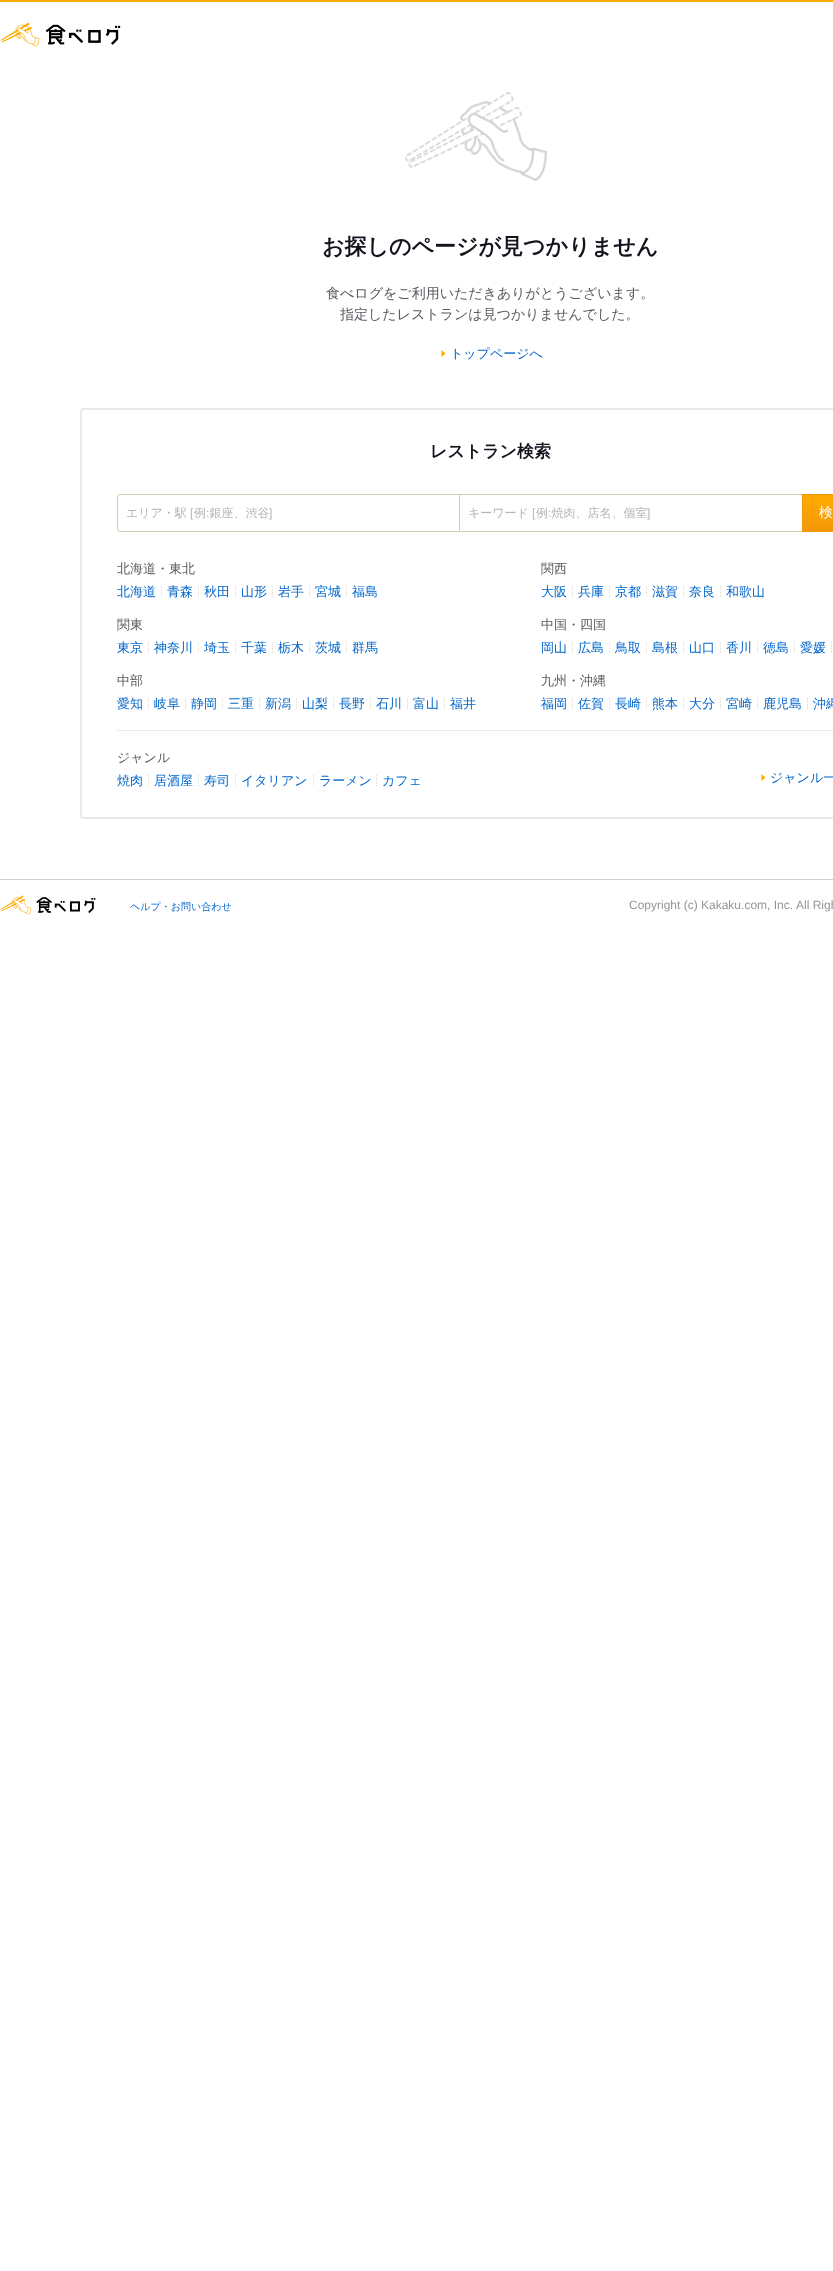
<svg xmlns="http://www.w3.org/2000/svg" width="833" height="2271">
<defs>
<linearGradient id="g1" gradientUnits="userSpaceOnUse" x1="833" y1="495" x2="833" y2="531"><stop offset="0" stop-color="#fa0"/><stop offset="1" stop-color="#f3980a"/></linearGradient>
</defs>
<rect width="100%" height="100%" fill="#fff"/>
<rect width="833" height="2" fill="#fa0"/>
<image x="0" y="22" width="121" height="25" href="media/1.png"/>
<image x="405" y="92" width="142" height="89" href="media/2.png"/>
<text x="322" y="254" style="font-family:WenQuanYi Zen Hei;font-size:22px;font-weight:bold;fill:#13131e">お探しのページが見つかりません</text>
<text x="326" y="298" style="font-family:WenQuanYi Zen Hei;font-size:14px;font-weight:500;fill:#595960">食べログをご利用いただきありがとうございます。</text>
<text x="340" y="319" style="font-family:WenQuanYi Zen Hei;font-size:14px;font-weight:500;fill:#595960">指定したレストランは見つかりませんでした。</text>
<path d="M441.5 357l4-3.5l-4-3.5z" fill="#fa0"/>
<text x="450" y="358" style="font-family:WenQuanYi Zen Hei;font-size:13px;font-weight:500;fill:#06c">トップページへ</text>
<rect x="81" y="409" width="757" height="409" rx="3" fill="none" stroke="#e9e9e9" stroke-width="2"/>
<text x="430" y="457" style="font-family:WenQuanYi Zen Hei;font-size:17px;font-weight:bold;fill:#13131e">レストラン検索</text>
<rect x="117.5" y="494.5" width="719" height="37" rx="2.5" fill="none" stroke="#d6ceb4"/>
<rect x="459" y="495" width="1" height="36" fill="#d6ceb4"/>
<text x="126" y="517" style="font-family:WenQuanYi Zen Hei;font-size:12px;font-weight:500;fill:#b4b4b4">エリア・駅</text>
<text x="190" y="517" style="font-family:Liberation Sans;font-size:12px;fill:#b4b4b4">[</text>
<text x="194" y="517" style="font-family:WenQuanYi Zen Hei;font-size:12px;font-weight:500;fill:#b4b4b4">例 銀座、渋谷</text>
<text x="269" y="517" style="font-family:Liberation Sans;font-size:12px;fill:#b4b4b4">]</text>
<text x="206" y="517" style="font-family:Liberation Sans;font-size:12px;fill:#b4b4b4">:</text>
<text x="468" y="517" style="font-family:WenQuanYi Zen Hei;font-size:12px;font-weight:500;fill:#b4b4b4">キーワード</text>
<text x="532" y="517" style="font-family:Liberation Sans;font-size:12px;fill:#b4b4b4">[</text>
<text x="536" y="517" style="font-family:WenQuanYi Zen Hei;font-size:12px;font-weight:500;fill:#b4b4b4">例 焼肉、店名、個室</text>
<text x="647" y="517" style="font-family:Liberation Sans;font-size:12px;fill:#b4b4b4">]</text>
<text x="548" y="517" style="font-family:Liberation Sans;font-size:12px;fill:#b4b4b4">:</text>
<rect x="803" y="495" width="30" height="36" fill="url(#g1)"/>
<rect x="802.5" y="494.5" width="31" height="37" fill="none" stroke="#f3980a"/>
<text x="819" y="517" style="font-family:WenQuanYi Zen Hei;font-size:14px;font-weight:500;fill:#fff">検</text>
<text x="117" y="573" style="font-family:WenQuanYi Zen Hei;font-size:13px;font-weight:500;fill:#595960">北海道・東北</text>
<text x="117" y="596" style="font-family:WenQuanYi Zen Hei;font-size:13px;font-weight:500;fill:#06c">北海道</text>
<path d="M161.5 586v11" fill="none" stroke="#e0dccc" stroke-dasharray="1 1"/>
<text x="167" y="596" style="font-family:WenQuanYi Zen Hei;font-size:13px;font-weight:500;fill:#06c">青森</text>
<path d="M198.5 586v11" fill="none" stroke="#e0dccc" stroke-dasharray="1 1"/>
<text x="204" y="596" style="font-family:WenQuanYi Zen Hei;font-size:13px;font-weight:500;fill:#06c">秋田</text>
<path d="M235.5 586v11" fill="none" stroke="#e0dccc" stroke-dasharray="1 1"/>
<text x="241" y="596" style="font-family:WenQuanYi Zen Hei;font-size:13px;font-weight:500;fill:#06c">山形</text>
<path d="M272.5 586v11" fill="none" stroke="#e0dccc" stroke-dasharray="1 1"/>
<text x="278" y="596" style="font-family:WenQuanYi Zen Hei;font-size:13px;font-weight:500;fill:#06c">岩手</text>
<path d="M309.5 586v11" fill="none" stroke="#e0dccc" stroke-dasharray="1 1"/>
<text x="315" y="596" style="font-family:WenQuanYi Zen Hei;font-size:13px;font-weight:500;fill:#06c">宮城</text>
<path d="M346.5 586v11" fill="none" stroke="#e0dccc" stroke-dasharray="1 1"/>
<text x="352" y="596" style="font-family:WenQuanYi Zen Hei;font-size:13px;font-weight:500;fill:#06c">福島</text>
<text x="117" y="629" style="font-family:WenQuanYi Zen Hei;font-size:13px;font-weight:500;fill:#595960">関東</text>
<text x="117" y="652" style="font-family:WenQuanYi Zen Hei;font-size:13px;font-weight:500;fill:#06c">東京</text>
<path d="M148.5 642v11" fill="none" stroke="#e0dccc" stroke-dasharray="1 1"/>
<text x="154" y="652" style="font-family:WenQuanYi Zen Hei;font-size:13px;font-weight:500;fill:#06c">神奈川</text>
<path d="M198.5 642v11" fill="none" stroke="#e0dccc" stroke-dasharray="1 1"/>
<text x="204" y="652" style="font-family:WenQuanYi Zen Hei;font-size:13px;font-weight:500;fill:#06c">埼玉</text>
<path d="M235.5 642v11" fill="none" stroke="#e0dccc" stroke-dasharray="1 1"/>
<text x="241" y="652" style="font-family:WenQuanYi Zen Hei;font-size:13px;font-weight:500;fill:#06c">千葉</text>
<path d="M272.5 642v11" fill="none" stroke="#e0dccc" stroke-dasharray="1 1"/>
<text x="278" y="652" style="font-family:WenQuanYi Zen Hei;font-size:13px;font-weight:500;fill:#06c">栃木</text>
<path d="M309.5 642v11" fill="none" stroke="#e0dccc" stroke-dasharray="1 1"/>
<text x="315" y="652" style="font-family:WenQuanYi Zen Hei;font-size:13px;font-weight:500;fill:#06c">茨城</text>
<path d="M346.5 642v11" fill="none" stroke="#e0dccc" stroke-dasharray="1 1"/>
<text x="352" y="652" style="font-family:WenQuanYi Zen Hei;font-size:13px;font-weight:500;fill:#06c">群馬</text>
<text x="117" y="685" style="font-family:WenQuanYi Zen Hei;font-size:13px;font-weight:500;fill:#595960">中部</text>
<text x="117" y="708" style="font-family:WenQuanYi Zen Hei;font-size:13px;font-weight:500;fill:#06c">愛知</text>
<path d="M148.5 698v11" fill="none" stroke="#e0dccc" stroke-dasharray="1 1"/>
<text x="154" y="708" style="font-family:WenQuanYi Zen Hei;font-size:13px;font-weight:500;fill:#06c">岐阜</text>
<path d="M185.5 698v11" fill="none" stroke="#e0dccc" stroke-dasharray="1 1"/>
<text x="191" y="708" style="font-family:WenQuanYi Zen Hei;font-size:13px;font-weight:500;fill:#06c">静岡</text>
<path d="M222.5 698v11" fill="none" stroke="#e0dccc" stroke-dasharray="1 1"/>
<text x="228" y="708" style="font-family:WenQuanYi Zen Hei;font-size:13px;font-weight:500;fill:#06c">三重</text>
<path d="M259.5 698v11" fill="none" stroke="#e0dccc" stroke-dasharray="1 1"/>
<text x="265" y="708" style="font-family:WenQuanYi Zen Hei;font-size:13px;font-weight:500;fill:#06c">新潟</text>
<path d="M296.5 698v11" fill="none" stroke="#e0dccc" stroke-dasharray="1 1"/>
<text x="302" y="708" style="font-family:WenQuanYi Zen Hei;font-size:13px;font-weight:500;fill:#06c">山梨</text>
<path d="M333.5 698v11" fill="none" stroke="#e0dccc" stroke-dasharray="1 1"/>
<text x="339" y="708" style="font-family:WenQuanYi Zen Hei;font-size:13px;font-weight:500;fill:#06c">長野</text>
<path d="M370.5 698v11" fill="none" stroke="#e0dccc" stroke-dasharray="1 1"/>
<text x="376" y="708" style="font-family:WenQuanYi Zen Hei;font-size:13px;font-weight:500;fill:#06c">石川</text>
<path d="M407.5 698v11" fill="none" stroke="#e0dccc" stroke-dasharray="1 1"/>
<text x="413" y="708" style="font-family:WenQuanYi Zen Hei;font-size:13px;font-weight:500;fill:#06c">富山</text>
<path d="M444.5 698v11" fill="none" stroke="#e0dccc" stroke-dasharray="1 1"/>
<text x="450" y="708" style="font-family:WenQuanYi Zen Hei;font-size:13px;font-weight:500;fill:#06c">福井</text>
<text x="541" y="573" style="font-family:WenQuanYi Zen Hei;font-size:13px;font-weight:500;fill:#595960">関西</text>
<text x="541" y="596" style="font-family:WenQuanYi Zen Hei;font-size:13px;font-weight:500;fill:#06c">大阪</text>
<path d="M572.5 586v11" fill="none" stroke="#e0dccc" stroke-dasharray="1 1"/>
<text x="578" y="596" style="font-family:WenQuanYi Zen Hei;font-size:13px;font-weight:500;fill:#06c">兵庫</text>
<path d="M609.5 586v11" fill="none" stroke="#e0dccc" stroke-dasharray="1 1"/>
<text x="615" y="596" style="font-family:WenQuanYi Zen Hei;font-size:13px;font-weight:500;fill:#06c">京都</text>
<path d="M646.5 586v11" fill="none" stroke="#e0dccc" stroke-dasharray="1 1"/>
<text x="652" y="596" style="font-family:WenQuanYi Zen Hei;font-size:13px;font-weight:500;fill:#06c">滋賀</text>
<path d="M683.5 586v11" fill="none" stroke="#e0dccc" stroke-dasharray="1 1"/>
<text x="689" y="596" style="font-family:WenQuanYi Zen Hei;font-size:13px;font-weight:500;fill:#06c">奈良</text>
<path d="M720.5 586v11" fill="none" stroke="#e0dccc" stroke-dasharray="1 1"/>
<text x="726" y="596" style="font-family:WenQuanYi Zen Hei;font-size:13px;font-weight:500;fill:#06c">和歌山</text>
<text x="541" y="629" style="font-family:WenQuanYi Zen Hei;font-size:13px;font-weight:500;fill:#595960">中国・四国</text>
<text x="541" y="652" style="font-family:WenQuanYi Zen Hei;font-size:13px;font-weight:500;fill:#06c">岡山</text>
<path d="M572.5 642v11" fill="none" stroke="#e0dccc" stroke-dasharray="1 1"/>
<text x="578" y="652" style="font-family:WenQuanYi Zen Hei;font-size:13px;font-weight:500;fill:#06c">広島</text>
<path d="M609.5 642v11" fill="none" stroke="#e0dccc" stroke-dasharray="1 1"/>
<text x="615" y="652" style="font-family:WenQuanYi Zen Hei;font-size:13px;font-weight:500;fill:#06c">鳥取</text>
<path d="M646.5 642v11" fill="none" stroke="#e0dccc" stroke-dasharray="1 1"/>
<text x="652" y="652" style="font-family:WenQuanYi Zen Hei;font-size:13px;font-weight:500;fill:#06c">島根</text>
<path d="M683.5 642v11" fill="none" stroke="#e0dccc" stroke-dasharray="1 1"/>
<text x="689" y="652" style="font-family:WenQuanYi Zen Hei;font-size:13px;font-weight:500;fill:#06c">山口</text>
<path d="M720.5 642v11" fill="none" stroke="#e0dccc" stroke-dasharray="1 1"/>
<text x="726" y="652" style="font-family:WenQuanYi Zen Hei;font-size:13px;font-weight:500;fill:#06c">香川</text>
<path d="M757.5 642v11" fill="none" stroke="#e0dccc" stroke-dasharray="1 1"/>
<text x="763" y="652" style="font-family:WenQuanYi Zen Hei;font-size:13px;font-weight:500;fill:#06c">徳島</text>
<text x="800" y="652" style="font-family:WenQuanYi Zen Hei;font-size:13px;font-weight:500;fill:#06c">愛媛</text>
<path d="M794.5 642v11m37-11v11" fill="none" stroke="#e0dccc" stroke-dasharray="1 1"/>
<text x="541" y="685" style="font-family:WenQuanYi Zen Hei;font-size:13px;font-weight:500;fill:#595960">九州・沖縄</text>
<text x="541" y="708" style="font-family:WenQuanYi Zen Hei;font-size:13px;font-weight:500;fill:#06c">福岡</text>
<path d="M572.5 698v11" fill="none" stroke="#e0dccc" stroke-dasharray="1 1"/>
<text x="578" y="708" style="font-family:WenQuanYi Zen Hei;font-size:13px;font-weight:500;fill:#06c">佐賀</text>
<path d="M609.5 698v11" fill="none" stroke="#e0dccc" stroke-dasharray="1 1"/>
<text x="615" y="708" style="font-family:WenQuanYi Zen Hei;font-size:13px;font-weight:500;fill:#06c">長崎</text>
<path d="M646.5 698v11" fill="none" stroke="#e0dccc" stroke-dasharray="1 1"/>
<text x="652" y="708" style="font-family:WenQuanYi Zen Hei;font-size:13px;font-weight:500;fill:#06c">熊本</text>
<path d="M683.5 698v11" fill="none" stroke="#e0dccc" stroke-dasharray="1 1"/>
<text x="689" y="708" style="font-family:WenQuanYi Zen Hei;font-size:13px;font-weight:500;fill:#06c">大分</text>
<path d="M720.5 698v11" fill="none" stroke="#e0dccc" stroke-dasharray="1 1"/>
<text x="726" y="708" style="font-family:WenQuanYi Zen Hei;font-size:13px;font-weight:500;fill:#06c">宮崎</text>
<path d="M757.5 698v11" fill="none" stroke="#e0dccc" stroke-dasharray="1 1"/>
<text x="763" y="708" style="font-family:WenQuanYi Zen Hei;font-size:13px;font-weight:500;fill:#06c">鹿児島</text>
<path d="M807.5 698v11" fill="none" stroke="#e0dccc" stroke-dasharray="1 1"/>
<text x="813" y="708" style="font-family:WenQuanYi Zen Hei;font-size:13px;font-weight:500;fill:#06c">沖縄</text>
<rect x="117" y="730" width="716" height="1" fill="#e9e9e9"/>
<text x="117" y="762" style="font-family:WenQuanYi Zen Hei;font-size:13px;font-weight:500;fill:#595960">ジャンル</text>
<text x="117" y="785" style="font-family:WenQuanYi Zen Hei;font-size:13px;font-weight:500;fill:#06c">焼肉</text>
<path d="M148.5 775v11" fill="none" stroke="#e0dccc" stroke-dasharray="1 1"/>
<text x="154" y="785" style="font-family:WenQuanYi Zen Hei;font-size:13px;font-weight:500;fill:#06c">居酒屋</text>
<path d="M198.5 775v11" fill="none" stroke="#e0dccc" stroke-dasharray="1 1"/>
<text x="204" y="785" style="font-family:WenQuanYi Zen Hei;font-size:13px;font-weight:500;fill:#06c">寿司</text>
<path d="M235.5 775v11" fill="none" stroke="#e0dccc" stroke-dasharray="1 1"/>
<text x="241" y="785" style="font-family:WenQuanYi Zen Hei;font-size:13px;font-weight:500;fill:#06c">イタリアン</text>
<path d="M313.5 775v11" fill="none" stroke="#e0dccc" stroke-dasharray="1 1"/>
<text x="319" y="785" style="font-family:WenQuanYi Zen Hei;font-size:13px;font-weight:500;fill:#06c">ラーメン</text>
<path d="M376.5 775v11" fill="none" stroke="#e0dccc" stroke-dasharray="1 1"/>
<text x="382" y="785" style="font-family:WenQuanYi Zen Hei;font-size:13px;font-weight:500;fill:#06c">カフェ</text>
<path d="M761.5 781l4-3.5l-4-3.5z" fill="#fa0"/>
<text x="770" y="782" style="font-family:WenQuanYi Zen Hei;font-size:13px;font-weight:500;fill:#06c">ジャンル一</text>
<rect y="879" width="833" height="1" fill="#d2d2d2"/>
<image x="0" y="895" width="96" height="20" href="media/3.png"/>
<text x="130" y="910" style="font-family:WenQuanYi Zen Hei;font-size:10px;font-weight:500;fill:#06c">ヘルプ・お問い合わせ</text>
<text x="629" y="909" style="font-family:Liberation Sans;font-size:12px;fill:#949499">Copyright (c) Kakaku.com, Inc.</text>
<text x="796" y="909" style="font-family:Liberation Sans;font-size:12px;fill:#949499">All Righ</text>
</svg>
